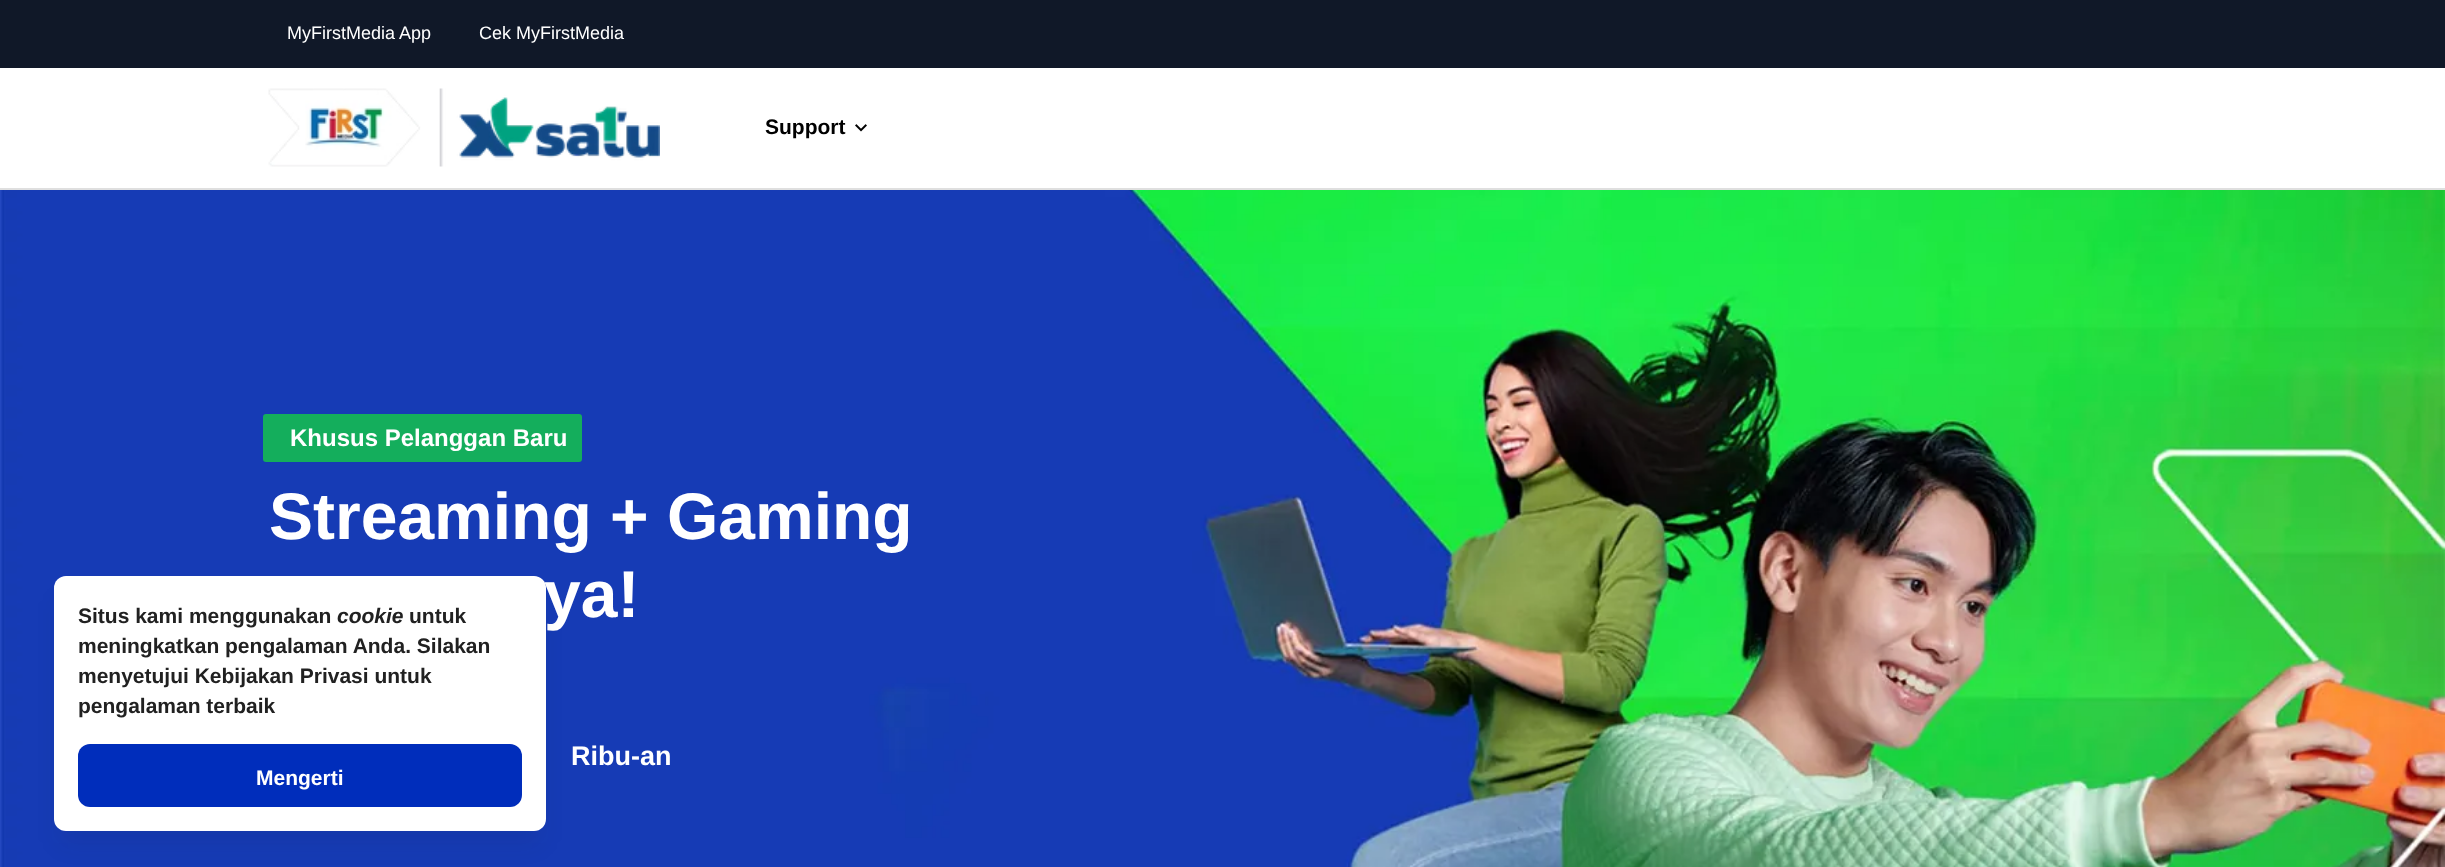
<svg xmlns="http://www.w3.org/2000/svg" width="2445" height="867">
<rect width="100%" height="100%" fill="#fff"/>
<rect width="2445" height="68" fill="#101828"/>
<text x="287" y="39" style="font-family:Liberation Sans;font-size:18px;fill:#fff">MyFirstMedia App</text>
<text x="479" y="39" style="font-family:Liberation Sans;font-size:18px;fill:#fff">Cek MyFirstMedia</text>
<rect y="188" width="2445" height="2" fill="#dfdfdf"/>
<image x="268" y="88" width="392" height="79" href="media/1.png"/>
<text x="765" y="134" style="font-family:Liberation Sans;font-size:21px;font-weight:bold;fill:#000">Support</text>
<image x="855" y="124" width="12" height="8" href="media/2.png"/>
<image x="0" y="190" width="2445" height="677" href="media/3.png"/>
<rect x="263" y="414" width="319" height="48" rx="3" fill="#14ae5c"/>
<text x="290" y="446" style="font-family:Liberation Sans;font-size:24px;font-weight:bold;fill:#fff">Khusus Pelanggan Baru</text>
<text x="269" y="539" style="font-family:Liberation Sans;font-size:66px;font-weight:bold;fill:#fff">Streaming + Gaming</text>
<text x="544" y="617" style="font-family:Liberation Sans;font-size:66px;font-weight:bold;fill:#fff">ya!</text>
<text x="571" y="765" style="font-family:Liberation Sans;font-size:27px;font-weight:bold;fill:#fff">Ribu-an</text>
<rect x="60" y="600" width="480" height="243" rx="6" fill="#10182814" filter="blur(12px)"/>
<rect x="54" y="576" width="492" height="255" rx="12" fill="#fff"/>
<text x="78" y="623" style="font-family:Liberation Sans;font-size:21px;font-weight:bold;fill:#212121">Situs kami menggunakan</text>
<text x="337" y="623" style="font-family:Liberation Sans;font-size:21px;font-weight:bold;font-style:italic;fill:#212121">cookie</text>
<text x="409" y="623" style="font-family:Liberation Sans;font-size:21px;font-weight:bold;fill:#212121">untuk</text>
<text x="78" y="653" style="font-family:Liberation Sans;font-size:21px;font-weight:bold;fill:#212121">meningkatkan pengalaman Anda. Silakan</text>
<text x="78" y="683" style="font-family:Liberation Sans;font-size:21px;font-weight:bold;fill:#212121">menyetujui Kebijakan Privasi untuk</text>
<text x="78" y="713" style="font-family:Liberation Sans;font-size:21px;font-weight:bold;fill:#212121">pengalaman terbaik</text>
<rect x="78" y="744" width="444" height="63" rx="12" fill="#002dbb"/>
<text x="256" y="785" style="font-family:Liberation Sans;font-size:21px;font-weight:bold;fill:#fff">Mengerti</text>
</svg>
